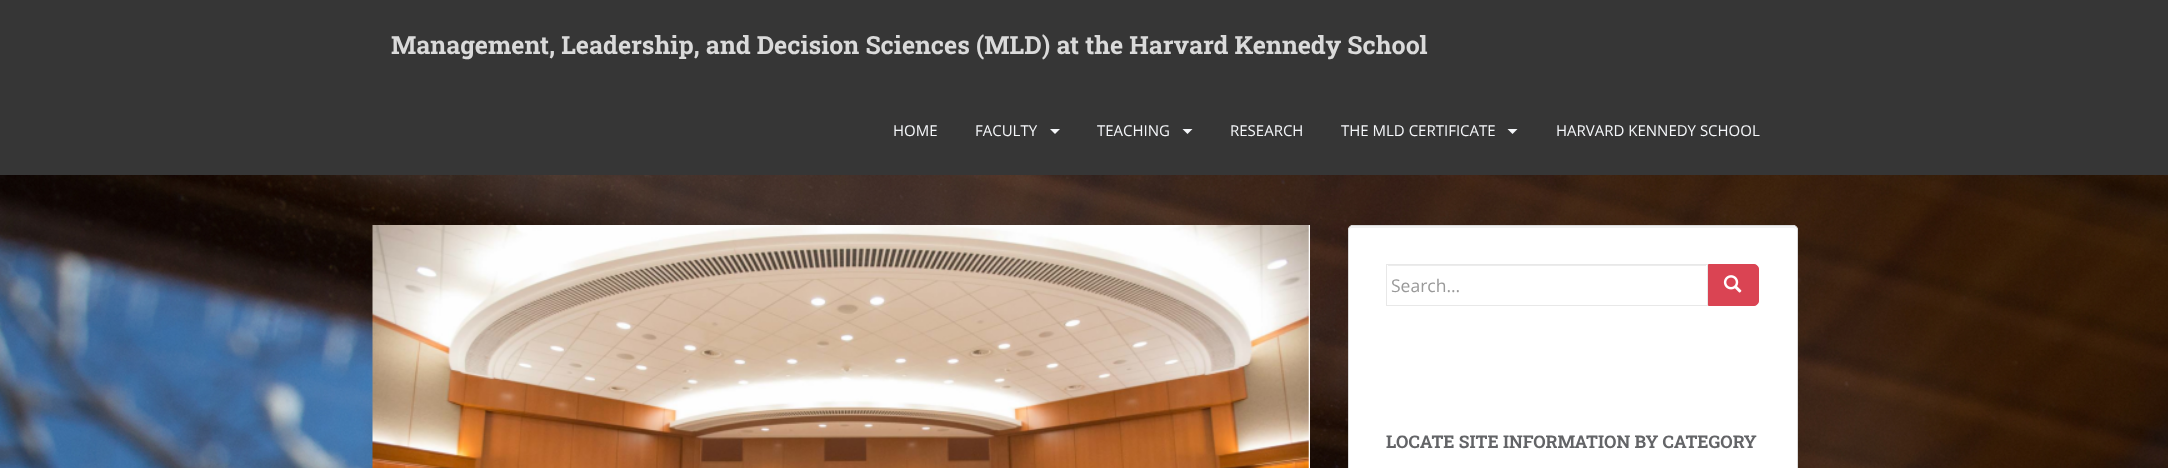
<svg xmlns="http://www.w3.org/2000/svg" width="2168" height="468">
<rect width="100%" height="100%" fill="#fff"/>
<image x="0" y="175" width="2168" height="293" href="media/1.png"/>
<rect width="2168" height="175" fill="#363636"/>
<text x="391" y="54" style="font-family:Roboto Slab;font-size:25px;font-weight:bold;fill:#dadada">Management, Leadership, and Decision Sciences (MLD) at the Harvard Kennedy School</text>
<text x="893" y="136" style="font-family:Open Sans;font-size:15px;fill:#f5f7fa">HOME</text>
<text x="975" y="136" style="font-family:Open Sans;font-size:15px;fill:#f5f7fa">FACULTY</text>
<path d="M1050 129h10l-5 5z" fill="#f5f7fa"/>
<text x="1097" y="136" style="font-family:Open Sans;font-size:15px;fill:#f5f7fa">TEACHING</text>
<path d="M1182.5 129h10l-5 5z" fill="#f5f7fa"/>
<text x="1230" y="136" style="font-family:Open Sans;font-size:15px;fill:#f5f7fa">RESEARCH</text>
<text x="1341" y="136" style="font-family:Open Sans;font-size:15px;fill:#f5f7fa">THE MLD CERTIFICATE</text>
<path d="M1507.5 129h10l-5 5z" fill="#f5f7fa"/>
<text x="1556" y="136" style="font-family:Open Sans;font-size:15px;fill:#f5f7fa">HARVARD KENNEDY SCHOOL</text>
<image x="372" y="225" width="938" height="243" href="media/2.png"/>
<rect x="1348" y="225" width="450" height="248" rx="5" fill="#fff"/>
<path d="M1352 228h440c3 0 4 1 4 3c0-3-1-5-4-5h-439l-2 1l-1 1l-1 3c0-2 1-3 3-3z" fill="#f2f2f2"/>
<rect x="1348.5" y="225.5" width="449" height="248" rx="4.5" fill="none" stroke="#dadada"/>
<rect x="1388" y="265" width="318" height="1" fill="#ececec"/>
<rect x="1386.5" y="264.5" width="321" height="41" fill="none" stroke="#e8e8e8"/>
<text x="1391" y="292" style="font-family:Open Sans;font-size:17.5px;fill:#999">Search…</text>
<path d="M1708.5 264.5h45.5c2.5 0 4.5 2 4.5 4.5v32c0 2.5-2 4.5-4.5 4.5h-45.5z" fill="#da4453" stroke="#da4453"/>
<image x="1723" y="275" width="19" height="18" href="media/3.png"/>
<text x="1386" y="448" style="font-family:Roboto Slab;font-size:17.5px;font-weight:bold;fill:#636467">LOCATE SITE INFORMATION BY CATEGORY</text>
</svg>
